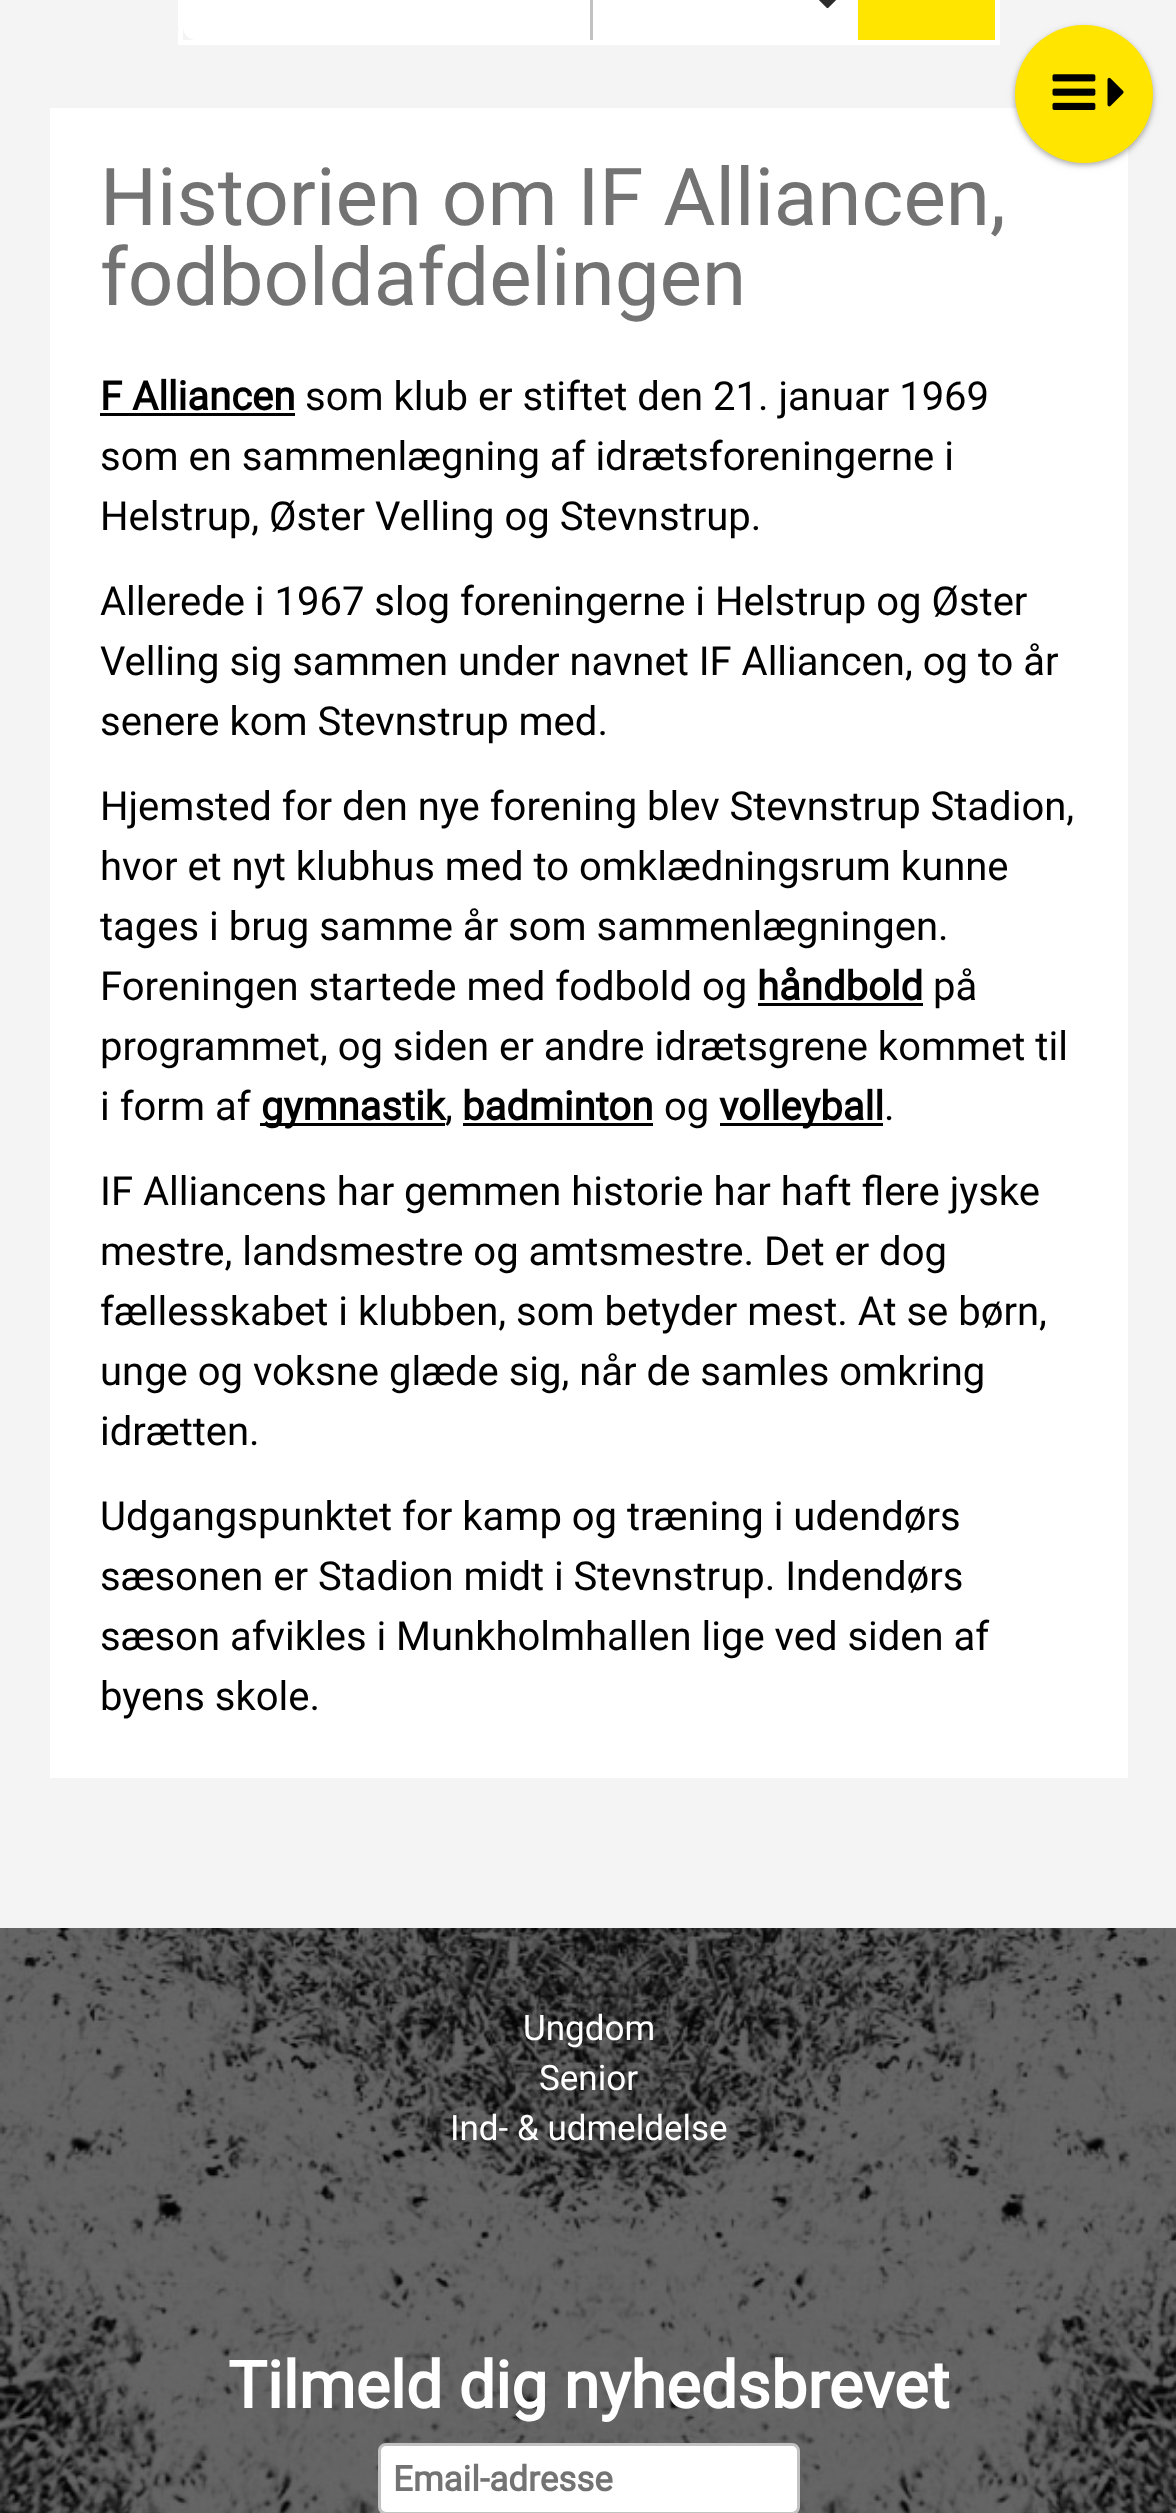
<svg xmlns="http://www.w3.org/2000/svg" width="1176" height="2513">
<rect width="100%" height="100%" fill="#fff"/>
<rect width="1176" height="1928" fill="#f4f4f4"/>
<rect x="50" y="108" width="1078" height="1670" fill="#fff"/>
<rect x="1015" y="28" width="138" height="137" rx="68.5" fill="#0000003d" filter="blur(2.5px)"/>
<rect x="1015" y="28" width="138" height="137" rx="68.5" fill="#0000001f" filter="blur(4px)"/>
<circle cx="1084" cy="94" r="69" fill="#ffe500"/>
<image x="1052" y="74" width="44" height="36" href="media/1.png"/>
<image x="1107" y="77" width="17" height="30" href="media/2.png"/>
<rect x="180.5" y="-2.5" width="817" height="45" fill="none" stroke="#fff" stroke-width="5"/>
<path d="M196-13h404v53h-404c-7 0-13-6-13-13v-27c0-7 6-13 13-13z" fill="#fff"/>
<rect x="600" width="258" height="40" fill="#fff"/>
<rect x="590" width="3" height="40" fill="#c2c2c2"/>
<image x="819" y="0" width="17" height="9" href="media/3.png"/>
<rect x="858" width="137" height="40" fill="#ffe500"/>
<text x="100" y="225" style="font-family:Roboto;font-size:80px;fill:#737373">Historien om IF Alliancen,</text>
<text x="100" y="305" style="font-family:Roboto;font-size:80px;fill:#737373">fodboldafdelingen</text>
<text x="100" y="410" style="font-family:Roboto;font-size:40px;font-weight:bold;fill:#000">F Alliancen</text>
<rect x="100" y="413" width="195" height="3" fill="#000"/>
<text x="305" y="410" style="font-family:Roboto;font-size:40px;fill:#000">som klub er stiftet den 21. januar 1969</text>
<text x="100" y="470" style="font-family:Roboto;font-size:40px;fill:#000">som en sammenlægning af idrætsforeningerne i</text>
<text x="100" y="530" style="font-family:Roboto;font-size:40px;fill:#000">Helstrup, Øster Velling og Stevnstrup.</text>
<text x="100" y="615" style="font-family:Roboto;font-size:40px;fill:#000">Allerede i 1967 slog foreningerne i Helstrup og Øster</text>
<text x="100" y="675" style="font-family:Roboto;font-size:40px;fill:#000">Velling sig sammen under navnet IF Alliancen, og to år</text>
<text x="100" y="735" style="font-family:Roboto;font-size:40px;fill:#000">senere kom Stevnstrup med.</text>
<text x="100" y="820" style="font-family:Roboto;font-size:40px;fill:#000">Hjemsted for den nye forening blev Stevnstrup Stadion,</text>
<text x="100" y="880" style="font-family:Roboto;font-size:40px;fill:#000">hvor et nyt klubhus med to omklædningsrum kunne</text>
<text x="100" y="940" style="font-family:Roboto;font-size:40px;fill:#000">tages i brug samme år som sammenlægningen.</text>
<text x="100" y="1000" style="font-family:Roboto;font-size:40px;fill:#000">Foreningen startede med fodbold og</text>
<text x="757" y="1000" style="font-family:Roboto;font-size:40px;font-weight:bold;fill:#000">håndbold</text>
<rect x="758" y="1003" width="165" height="3" fill="#000"/>
<text x="933" y="1000" style="font-family:Roboto;font-size:40px;fill:#000">på</text>
<text x="100" y="1060" style="font-family:Roboto;font-size:40px;fill:#000">programmet, og siden er andre idrætsgrene kommet til</text>
<text x="100" y="1120" style="font-family:Roboto;font-size:40px;fill:#000">i form af</text>
<rect x="260" y="1123" width="185" height="3" fill="#000"/>
<text x="261" y="1120" style="font-family:Roboto;font-size:40px;font-weight:bold;fill:#000">gymnastik</text>
<text x="445" y="1120" style="font-family:Roboto;font-size:40px;fill:#000">,</text>
<text x="462" y="1120" style="font-family:Roboto;font-size:40px;font-weight:bold;fill:#000">badminton</text>
<rect x="463" y="1123" width="190" height="3" fill="#000"/>
<text x="664" y="1120" style="font-family:Roboto;font-size:40px;fill:#000">og</text>
<rect x="720" y="1123" width="163" height="3" fill="#000"/>
<text x="719" y="1120" style="font-family:Roboto;font-size:40px;font-weight:bold;fill:#000">volleyball</text>
<text x="884" y="1120" style="font-family:Roboto;font-size:40px;fill:#000">.</text>
<text x="100" y="1205" style="font-family:Roboto;font-size:40px;fill:#000">IF Alliancens har gemmen historie har haft flere jyske</text>
<text x="100" y="1265" style="font-family:Roboto;font-size:40px;fill:#000">mestre, landsmestre og amtsmestre. Det er dog</text>
<text x="100" y="1325" style="font-family:Roboto;font-size:40px;fill:#000">fællesskabet i klubben, som betyder mest. At se børn,</text>
<text x="100" y="1385" style="font-family:Roboto;font-size:40px;fill:#000">unge og voksne glæde sig, når de samles omkring</text>
<text x="100" y="1445" style="font-family:Roboto;font-size:40px;fill:#000">idrætten.</text>
<text x="100" y="1530" style="font-family:Roboto;font-size:40px;fill:#000">Udgangspunktet for kamp og træning i udendørs</text>
<text x="100" y="1590" style="font-family:Roboto;font-size:40px;fill:#000">sæsonen er Stadion midt i Stevnstrup. Indendørs</text>
<text x="100" y="1650" style="font-family:Roboto;font-size:40px;fill:#000">sæson afvikles i Munkholmhallen lige ved siden af</text>
<text x="100" y="1710" style="font-family:Roboto;font-size:40px;fill:#000">byens skole.</text>
<image x="0" y="1928" width="1176" height="585" href="media/4.png"/>
<rect y="1928" width="1176" height="585" fill="#00000099"/>
<text x="523" y="2040" style="font-family:Roboto;font-size:35px;fill:#fff">Ungdom</text>
<text x="539" y="2090" style="font-family:Roboto;font-size:35px;fill:#fff">Senior</text>
<text x="450" y="2140" style="font-family:Roboto;font-size:35px;fill:#fff">Ind- &amp; udmeldelse</text>
<text x="228" y="2408" style="font-family:Roboto;font-size:65px;font-weight:bold;fill:#fff">Tilmeld dig nyhedsbrevet</text>
<rect x="379.5" y="2444.5" width="419" height="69" rx="6.5" fill="#fff" stroke="#c2c2c2" stroke-width="3"/>
<text x="393" y="2491" style="font-family:Roboto;font-size:35px;font-weight:bold;fill:#737373">Email-adresse</text>
</svg>
